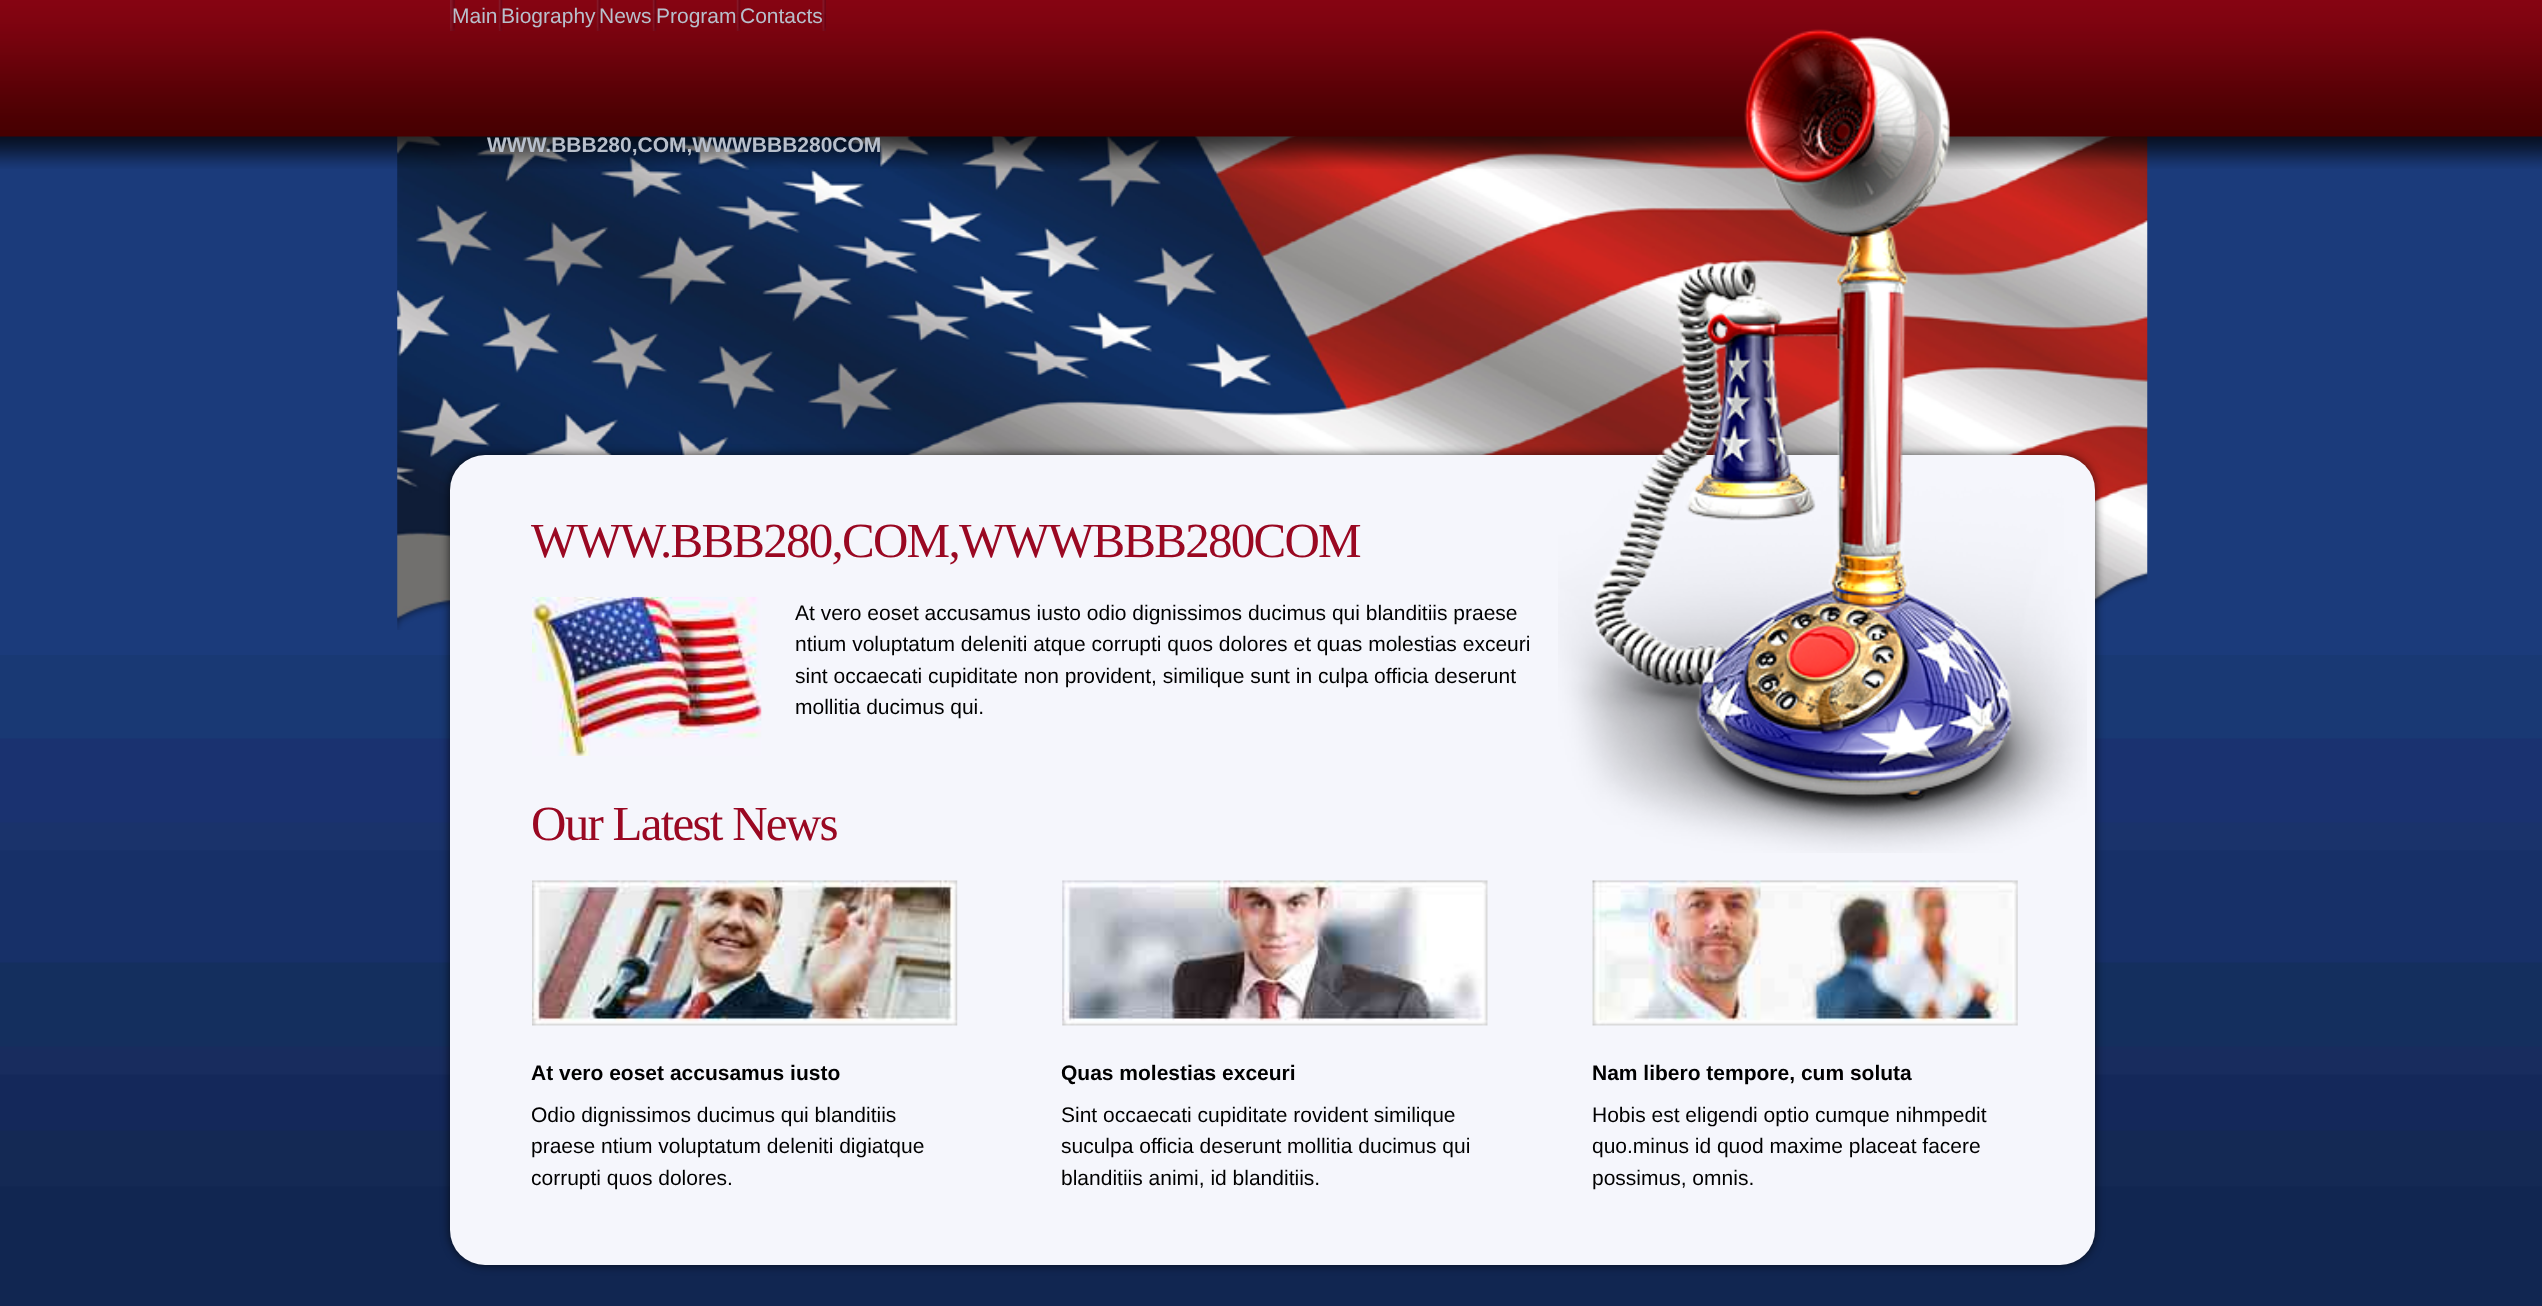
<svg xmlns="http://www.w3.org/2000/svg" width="2542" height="1306">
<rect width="100%" height="100%" fill="#1b3b7b"/>
<image x="0" y="655" width="2542" height="651" href="media/1.png"/>
<image x="397" y="136" width="1751" height="494" href="media/2.png"/>
<image x="0" y="0" width="2542" height="169" href="media/3.png"/>
<image x="450" y="0" width="5" height="31" href="media/4.png"/>
<image x="498" y="0" width="5" height="31" href="media/5.png"/>
<text x="452" y="23" style="font-family:Liberation Sans;font-size:21px;fill:#b8bfcb">Main</text>
<image x="596" y="0" width="5" height="31" href="media/5.png"/>
<text x="501" y="23" style="font-family:Liberation Sans;font-size:21px;fill:#b8bfcb">Biography</text>
<image x="652" y="0" width="5" height="31" href="media/5.png"/>
<text x="599" y="23" style="font-family:Liberation Sans;font-size:21px;fill:#b8bfcb">News</text>
<image x="736" y="0" width="5" height="31" href="media/5.png"/>
<text x="656" y="23" style="font-family:Liberation Sans;font-size:21px;fill:#b8bfcb">Program</text>
<image x="822" y="0" width="4" height="31" href="media/6.png"/>
<text x="740" y="23" style="font-family:Liberation Sans;font-size:21px;fill:#b8bfcb">Contacts</text>
<text x="487" y="152" style="font-family:Liberation Sans;font-size:21px;font-weight:bold;fill:#b8bfcb">WWW.BBB280,COM,WWWBBB280COM</text>
<rect x="450" y="455" width="1645" height="810" rx="35" fill="#000000b3" filter="blur(5px)"/>
<rect x="450" y="455" width="1645" height="810" rx="35" fill="#f5f6fc"/>
<image x="1558" y="29" width="529" height="824" href="media/7.png"/>
<text x="531" y="557" style="font-family:Liberation Serif;font-size:49px;letter-spacing:-1.75px;fill:#9a0822">WWW.BBB280,COM,WWWBBB280COM</text>
<image x="532" y="596" width="230" height="160" href="media/8.png"/>
<text x="795" y="620" style="font-family:Liberation Sans;font-size:21px;fill:#000">At vero eoset accusamus iusto odio dignissimos ducimus qui blanditiis praese</text>
<text x="795" y="651" style="font-family:Liberation Sans;font-size:21px;fill:#000">ntium voluptatum deleniti atque corrupti quos dolores et quas molestias exceuri</text>
<text x="795" y="683" style="font-family:Liberation Sans;font-size:21px;fill:#000">sint occaecati cupiditate non provident, similique sunt in culpa officia deserunt</text>
<text x="795" y="714" style="font-family:Liberation Sans;font-size:21px;fill:#000">mollitia ducimus qui.</text>
<text x="531" y="840" style="font-family:Liberation Serif;font-size:49px;letter-spacing:-1.75px;fill:#9a0822">Our Latest News</text>
<image x="532" y="880" width="426" height="146" href="media/9.png"/>
<text x="531" y="1080" style="font-family:Liberation Sans;font-size:21px;font-weight:bold;fill:#000">At vero eoset accusamus iusto</text>
<text x="531" y="1122" style="font-family:Liberation Sans;font-size:21px;fill:#000">Odio dignissimos ducimus qui blanditiis</text>
<text x="531" y="1153" style="font-family:Liberation Sans;font-size:21px;fill:#000">praese ntium voluptatum deleniti digiatque</text>
<text x="531" y="1185" style="font-family:Liberation Sans;font-size:21px;fill:#000">corrupti quos dolores.</text>
<image x="1062" y="880" width="426" height="146" href="media/10.png"/>
<text x="1061" y="1080" style="font-family:Liberation Sans;font-size:21px;font-weight:bold;fill:#000">Quas molestias exceuri</text>
<text x="1061" y="1122" style="font-family:Liberation Sans;font-size:21px;fill:#000">Sint occaecati cupiditate rovident similique</text>
<text x="1061" y="1153" style="font-family:Liberation Sans;font-size:21px;fill:#000">suculpa officia deserunt mollitia ducimus qui</text>
<text x="1061" y="1185" style="font-family:Liberation Sans;font-size:21px;fill:#000">blanditiis animi, id blanditiis.</text>
<image x="1592" y="880" width="426" height="146" href="media/11.png"/>
<text x="1592" y="1080" style="font-family:Liberation Sans;font-size:21px;font-weight:bold;fill:#000">Nam libero tempore, cum soluta</text>
<text x="1592" y="1122" style="font-family:Liberation Sans;font-size:21px;fill:#000">Hobis est eligendi optio cumque nihmpedit</text>
<text x="1592" y="1153" style="font-family:Liberation Sans;font-size:21px;fill:#000">quo.minus id quod maxime placeat facere</text>
<text x="1592" y="1185" style="font-family:Liberation Sans;font-size:21px;fill:#000">possimus, omnis.</text>
</svg>
